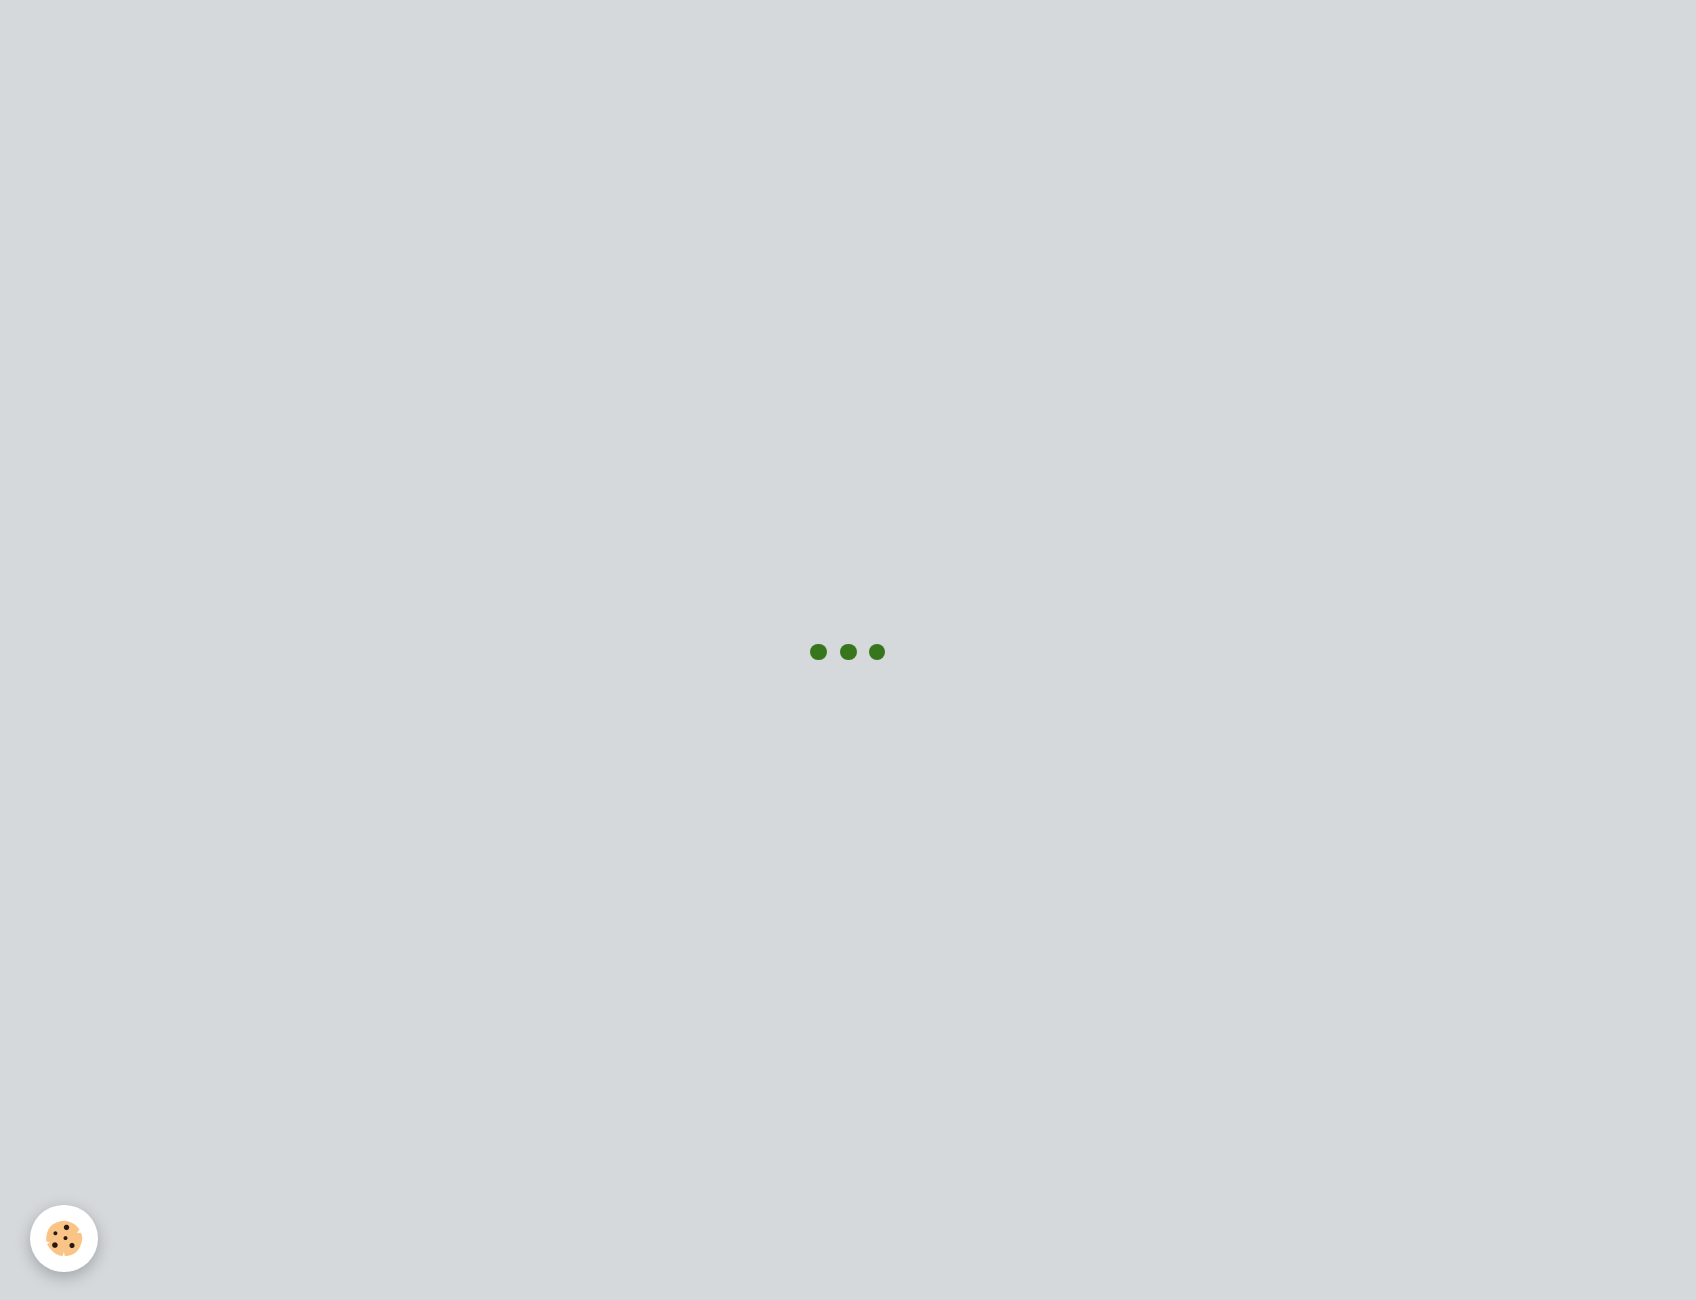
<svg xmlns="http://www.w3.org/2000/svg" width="1696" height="1300">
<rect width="100%" height="100%" fill="#d5d9dc"/>
<rect x="810" y="644" width="17" height="16" rx="8" fill="#38761d"/>
<rect x="840" y="644" width="17" height="16" rx="8" fill="#38761d"/>
<circle cx="877" cy="652" r="8" fill="#38761d"/>
<rect x="30" y="1209" width="68" height="68" rx="34" fill="#0000003d" filter="blur(7.5px)"/>
<rect x="30" y="1205" width="68" height="67" rx="33.5" fill="#fff"/>
<image x="46" y="1220" width="37" height="36" href="media/1.png"/>
</svg>
